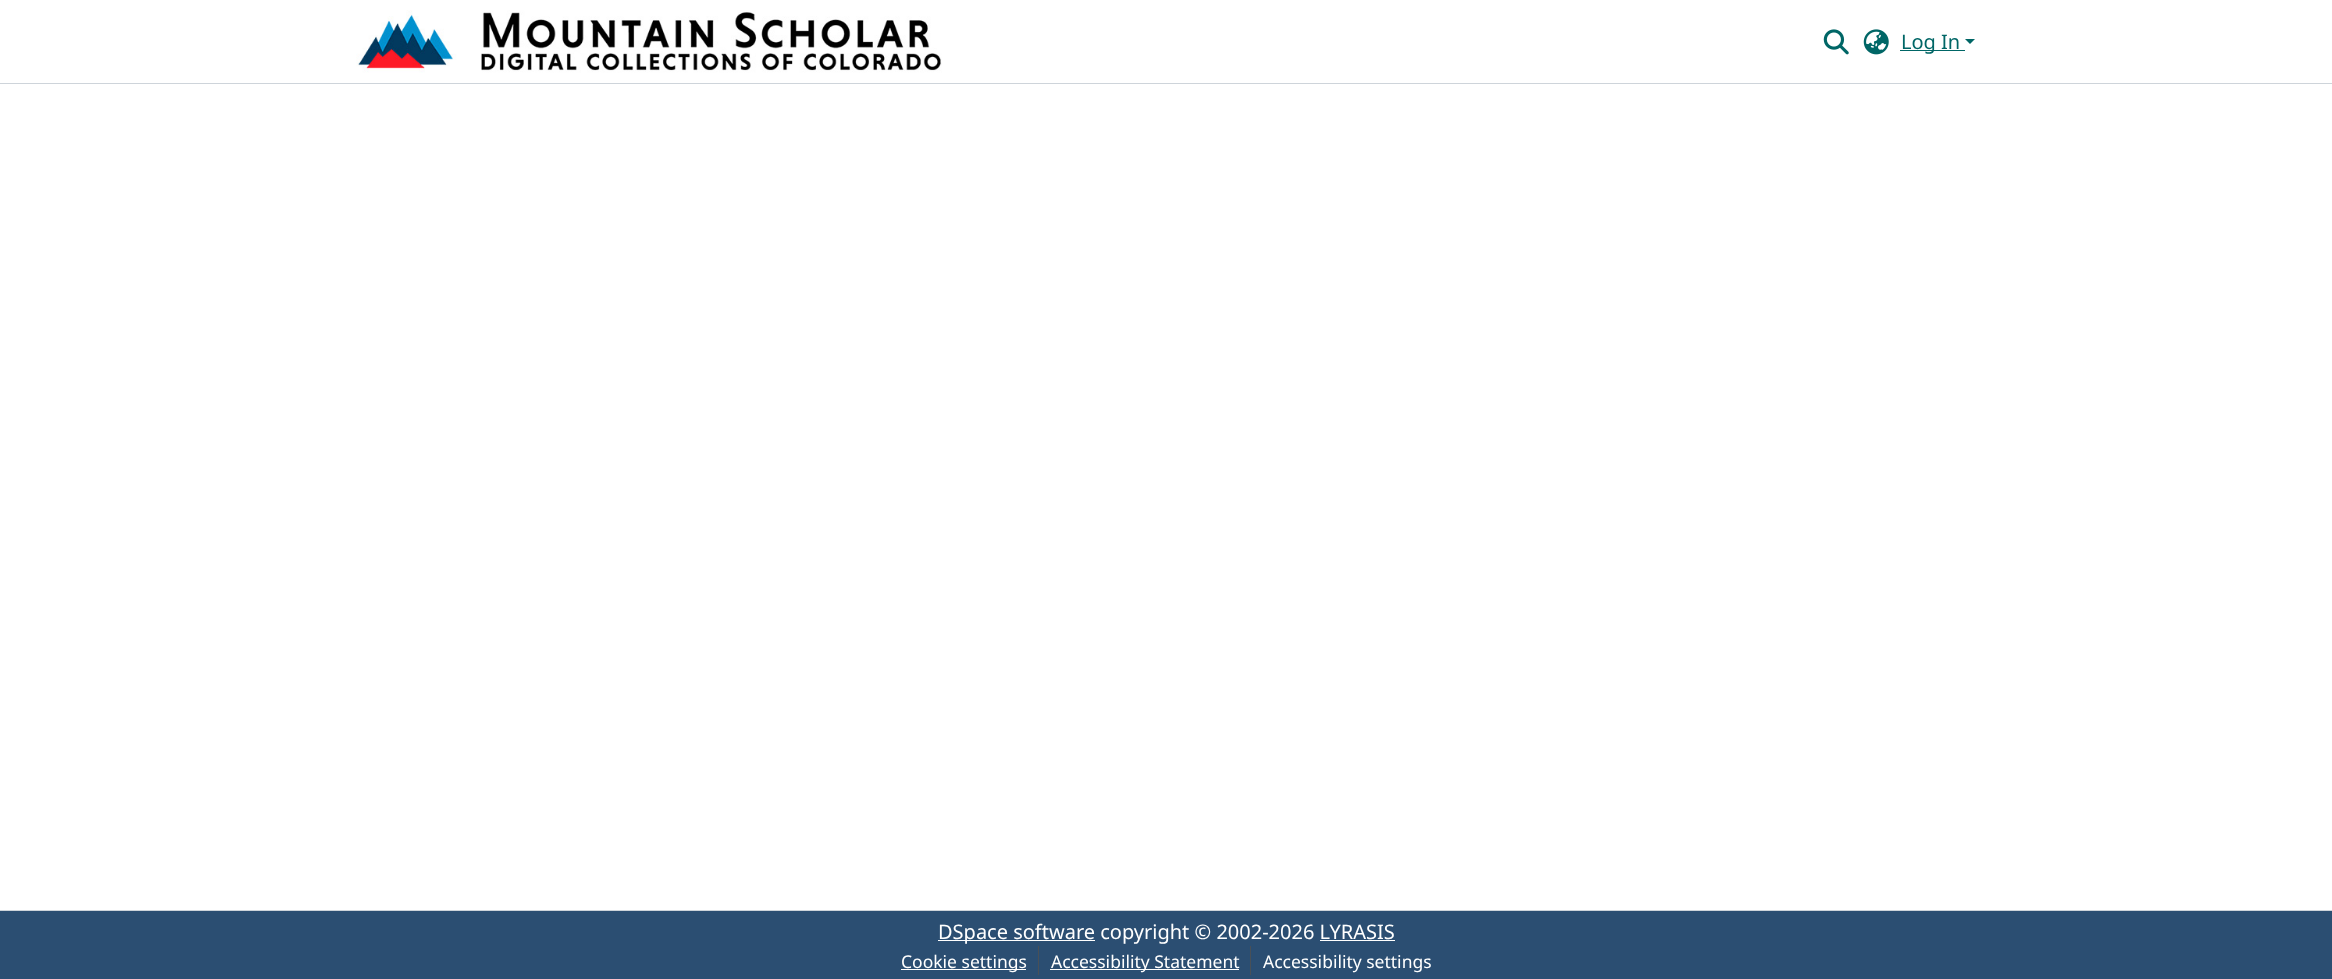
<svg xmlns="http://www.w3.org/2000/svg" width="2332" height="979">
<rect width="100%" height="100%" fill="#fff"/>
<rect y="83" width="2332" height="1" fill="#ced4da"/>
<image x="356" y="10" width="586" height="63" href="media/1.png"/>
<image x="1823" y="29" width="26" height="26" href="media/2.png"/>
<image x="1863" y="29" width="26" height="26" href="media/3.png"/>
<rect x="1900" y="50" width="65" height="1" fill="#066"/>
<text x="1901" y="49" style="font-family:Noto Sans;font-size:20px;fill:#066">Log In</text>
<path d="M1965 39h10l-5 5z" fill="#066"/>
<rect y="911" width="2332" height="68" fill="#2b4e72"/>
<rect y="910" width="2332" height="1" fill="#ced4da"/>
<rect x="938" y="940" width="157" height="1" fill="#fff"/>
<text x="938" y="939" style="font-family:Noto Sans;font-size:20px;fill:#fff">DSpace software copyright © 2002-2026 LYRASIS</text>
<rect x="1320" y="940" width="75" height="1" fill="#fff"/>
<rect x="901" y="969" width="125" height="1" fill="#fff"/>
<text x="901" y="968" style="font-family:Noto Sans;font-size:17.5px;fill:#fff">Cookie settings</text>
<rect x="1038" y="946" width="1" height="29" fill="#495057"/>
<rect x="1050" y="969" width="189" height="1" fill="#fff"/>
<text x="1051" y="968" style="font-family:Noto Sans;font-size:17.5px;fill:#fff">Accessibility Statement</text>
<rect x="1250" y="946" width="1" height="29" fill="#495057"/>
<text x="1263" y="968" style="font-family:Noto Sans;font-size:17.5px;fill:#fff">Accessibility settings</text>
</svg>
